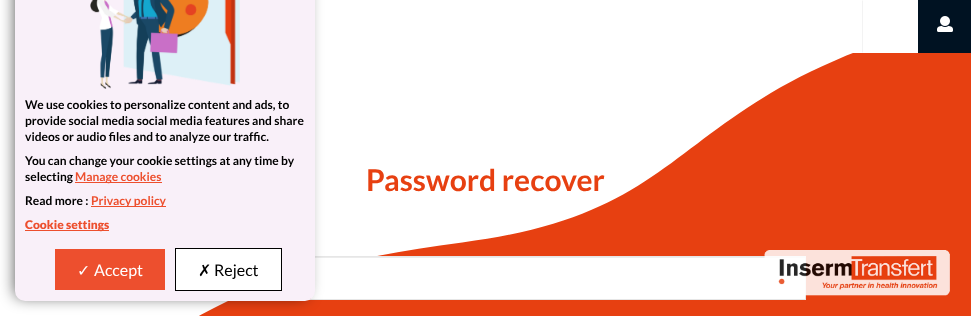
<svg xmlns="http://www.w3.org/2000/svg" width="971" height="316">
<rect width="100%" height="100%" fill="#fff"/>
<image x="199" y="53" width="772" height="263" href="media/1.png"/>
<path d="M862 53v-53l1 1v51z" fill="#f3f3f3"/>
<rect x="918" width="53" height="53" fill="#001222"/>
<image x="937" y="16" width="16" height="16" href="media/2.png"/>
<rect x="311" y="258" width="494" height="41" fill="#fff"/>
<rect x="315" y="257" width="490" height="1" fill="#ececec"/>
<rect x="166.5" y="256.5" width="639" height="43" fill="none" stroke="#e6e6e6"/>
<rect x="15" y="-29" width="292" height="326" rx="6" fill="#000000ab" filter="blur(7.5px)"/>
<rect x="15" y="-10" width="300" height="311" rx="10" fill="#f9f0f9"/>
<image x="90" y="0" width="150" height="89" href="media/3.png"/>
<text x="25" y="109" style="font-family:Lato;font-size:12px;font-weight:bold;fill:#000">We use cookies to personalize content and ads, to</text>
<text x="25" y="125" style="font-family:Lato;font-size:12px;font-weight:bold;fill:#000">provide social media social media features and share</text>
<text x="25" y="141" style="font-family:Lato;font-size:12px;font-weight:bold;fill:#000">videos or audio files and to analyze our traffic.</text>
<text x="25" y="165" style="font-family:Lato;font-size:12px;font-weight:bold;fill:#000">You can change your cookie settings at any time by</text>
<text x="25" y="181" style="font-family:Lato;font-size:12px;font-weight:bold;fill:#000">selecting</text>
<rect x="75" y="182" width="87" height="1" fill="#ed4f2e"/>
<text x="75" y="181" style="font-family:Lato;font-size:12px;font-weight:bold;fill:#ed4f2e">Manage cookies</text>
<text x="25" y="205" style="font-family:Lato;font-size:12px;font-weight:bold;fill:#000">Read more :</text>
<rect x="91" y="206" width="75" height="1" fill="#ed4f2e"/>
<text x="91" y="205" style="font-family:Lato;font-size:12px;font-weight:bold;fill:#ed4f2e">Privacy policy</text>
<rect x="25" y="230" width="84" height="1" fill="#ed4f2e"/>
<text x="25" y="229" style="font-family:Lato;font-size:12px;font-weight:900;fill:#ed4f2e">Cookie settings</text>
<rect x="55" y="249" width="110" height="41" fill="#ed4f2e"/>
<text x="77" y="276" style="font-family:DejaVu Sans;font-size:16px;fill:#fff">✓</text>
<text x="94" y="276" style="font-family:Lato;font-size:16px;fill:#fff">Accept</text>
<rect x="175.5" y="248.5" width="106" height="42" fill="#fff" stroke="#000"/>
<text x="198" y="276" style="font-family:DejaVu Sans;font-size:16px;fill:#000">✗</text>
<text x="214" y="276" style="font-family:Lato;font-size:16px;fill:#000">Reject</text>
<text x="366" y="191" style="font-family:Lato;font-size:30px;font-weight:bold;fill:#e74011">Password recover</text>
<image x="764" y="250" width="186" height="46" href="media/4.png"/>
</svg>
